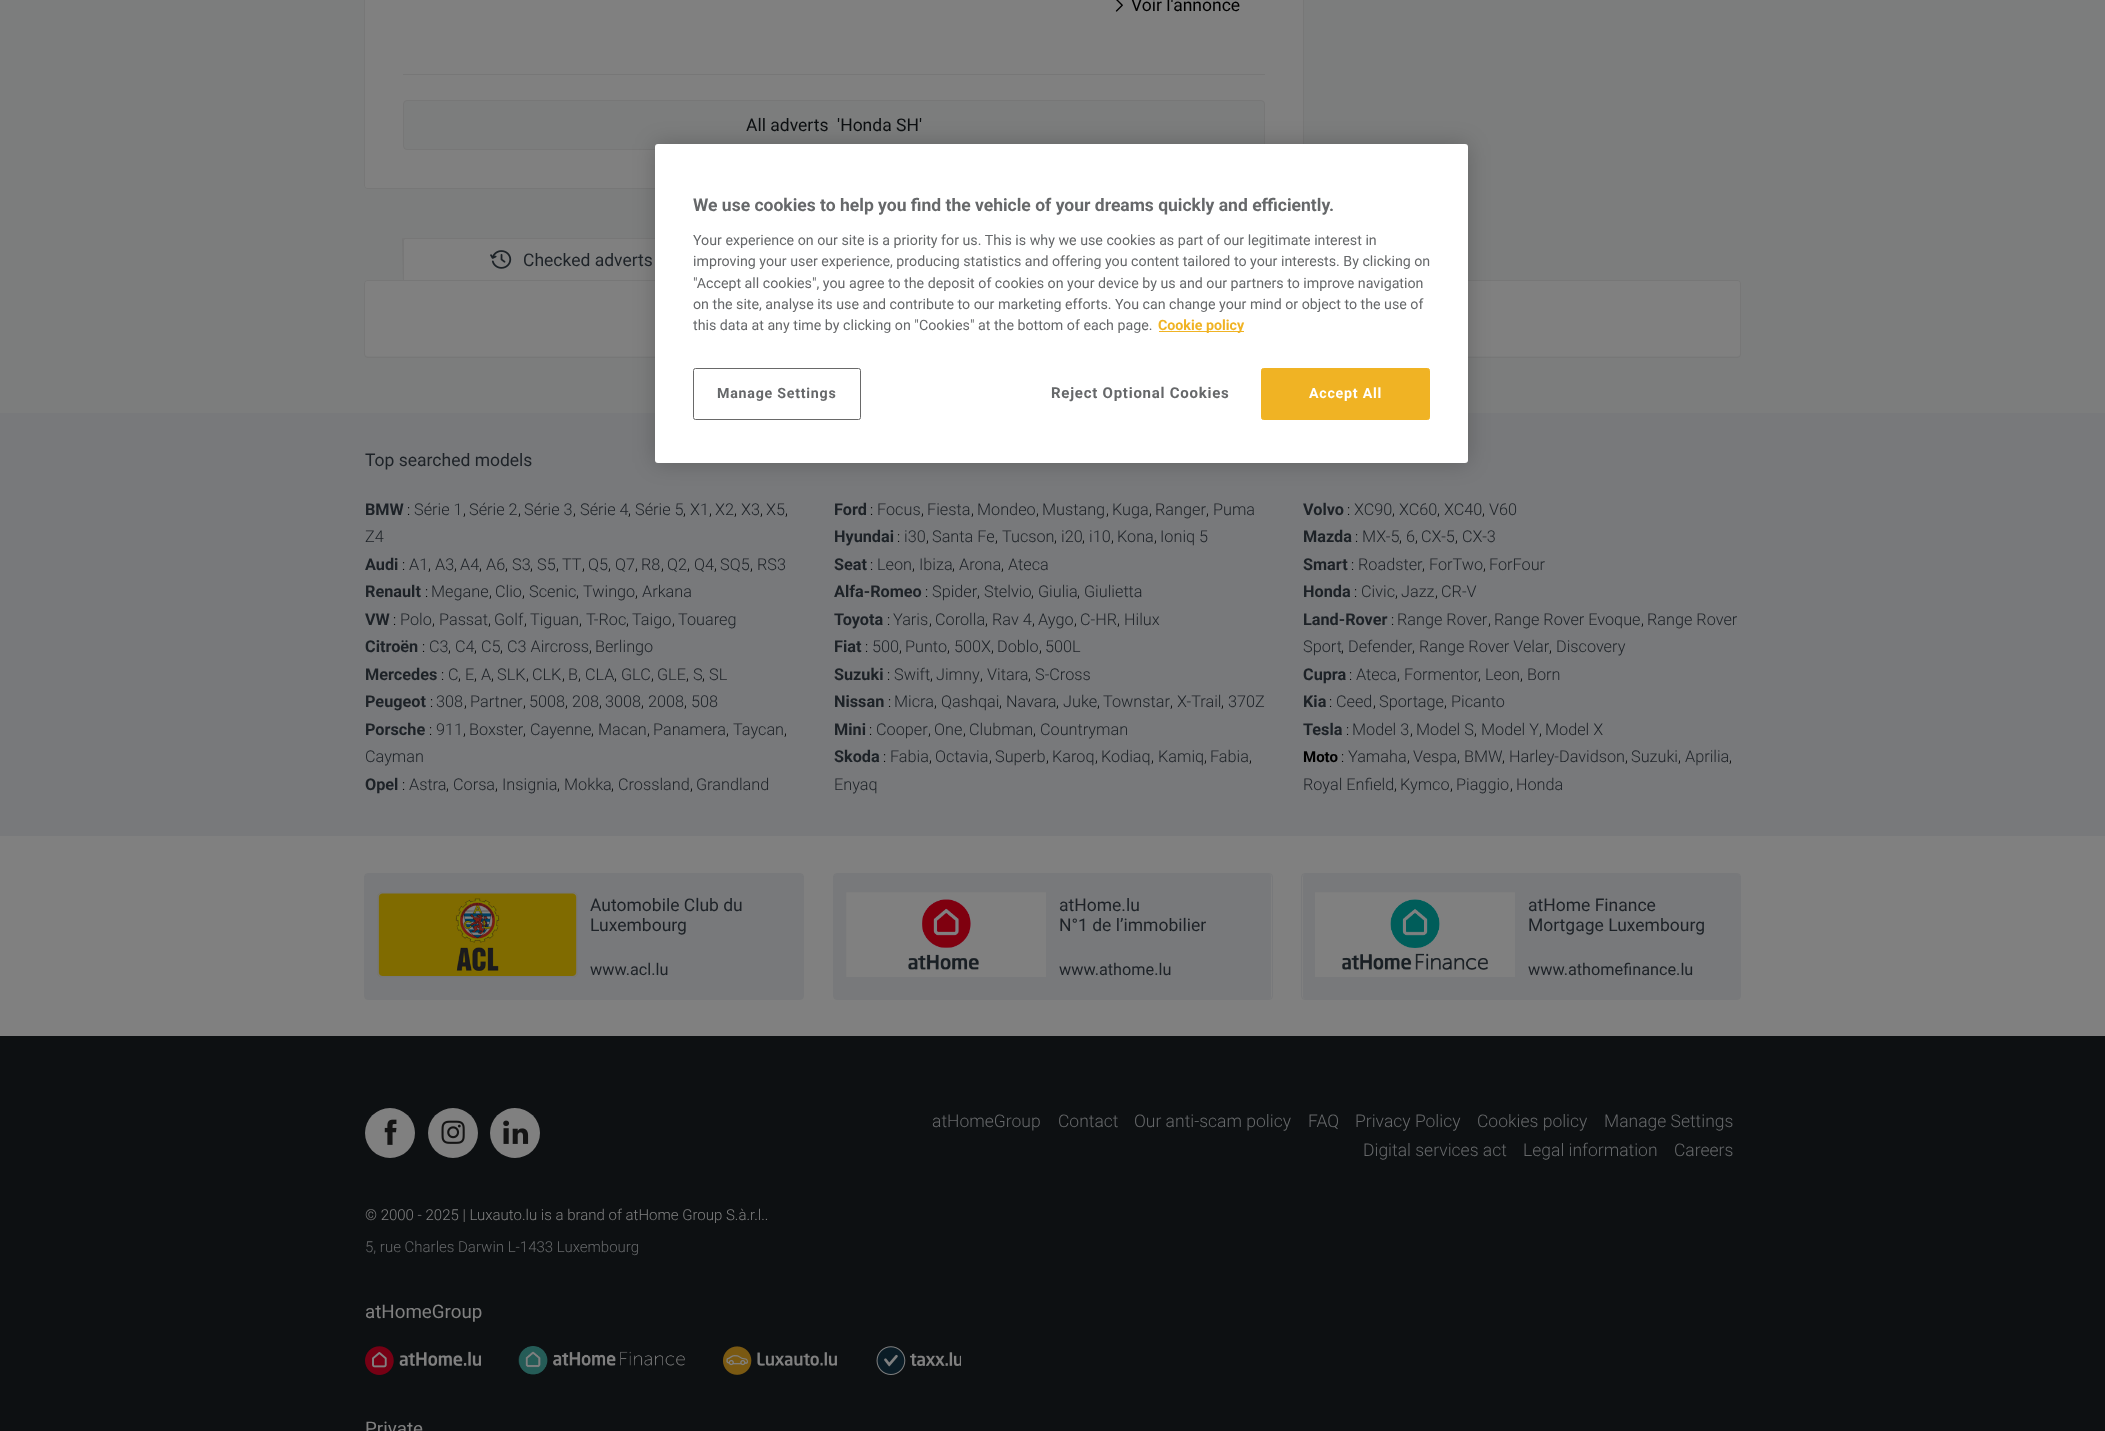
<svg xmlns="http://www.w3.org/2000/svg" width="2105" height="1431">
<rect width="100%" height="100%" fill="#7c7d7d"/>
<rect x="364.5" y="-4.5" width="939" height="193" rx="3.5" fill="none" stroke="#777"/>
<rect x="365" y="-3" width="938" height="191" rx="2.5" fill="#808080"/>
<rect x="403" y="74" width="862" height="1" fill="#777"/>
<image x="1115" y="0" width="8" height="12" href="media/1.png"/>
<text x="1131" y="11" style="font-family:Roboto;font-size:17.5px;fill:#000">Voir l'annonce</text>
<rect x="403.5" y="100.5" width="861" height="49" rx="3.5" fill="#7c7d7d" stroke="#777"/>
<text x="746" y="131" style="font-family:Roboto;font-size:17.5px;fill:#0d1012" xml:space="preserve">All adverts  'Honda SH'</text>
<path d="M405.5 238h332c1.5 0 2.5 1 2.5 2.5v40.5h-337v-40.5c0-1.5 1-2.5 2.5-2.5z" fill="#808080"/>
<path d="M405 238h-2l1 2l1-1h333l1-1h-1z" fill="#777"/>
<path d="M402 239l1-1l1 2v40l-1 1z" fill="#777"/>
<rect x="364.5" y="280.5" width="1376" height="77" rx="3.5" fill="none" stroke="#777"/>
<rect x="365" y="281" width="1375" height="75" rx="2.5" fill="#808080"/>
<rect y="413" width="2105" height="423" fill="#78797b"/>
<rect x="655" y="144" width="813" height="319" rx="3" fill="#00000033" filter="blur(11px)"/>
<rect x="655" y="144" width="813" height="319" rx="3" fill="#fff"/>
<text x="693" y="211" style="font-family:Roboto;font-size:17.5px;font-weight:bold;fill:#66686a">We use cookies to help you find the vehicle of your dreams quickly and efficiently.</text>
<text x="693" y="245" style="font-family:Roboto;font-size:14.23px;fill:#66686a">Your experience on our site is a priority for us. This is why we use cookies as part of our legitimate interest in</text>
<text x="693" y="266" style="font-family:Roboto;font-size:14.23px;fill:#66686a">improving your user experience, producing statistics and offering you content tailored to your interests. By clicking on</text>
<text x="693" y="288" style="font-family:Roboto;font-size:14.23px;fill:#66686a">"Accept all cookies", you agree to the deposit of cookies on your device by us and our partners to improve navigation</text>
<text x="693" y="309" style="font-family:Roboto;font-size:14.23px;fill:#66686a">on the site, analyse its use and contribute to our marketing efforts. You can change your mind or object to the use of</text>
<text x="693" y="330" style="font-family:Roboto;font-size:14.23px;fill:#66686a">this data at any time by clicking on "Cookies" at the bottom of each page.</text>
<rect x="1159" y="331" width="85" height="1" fill="#f0b324"/>
<text x="1158" y="330" style="font-family:Roboto;font-size:14.23px;font-weight:bold;fill:#f0b324">Cookie policy</text>
<rect x="693.5" y="368.5" width="167" height="51" rx="2" fill="none" stroke="#696969"/>
<text x="717" y="398" style="font-family:Roboto;font-size:14.23px;font-weight:bold;letter-spacing:0.75px;fill:#66686a">Manage Settings</text>
<text x="1051" y="398" style="font-family:Roboto;font-size:15px;font-weight:bold;letter-spacing:0.75px;fill:#66686a">Reject Optional Cookies</text>
<rect x="1261.5" y="368.5" width="168" height="51" rx="2" fill="#f0b324" stroke="#f0b324"/>
<text x="1309" y="398" style="font-family:Roboto;font-size:14.23px;font-weight:bold;letter-spacing:0.75px;fill:#fff">Accept All</text>
<image x="490" y="250" width="22" height="19" href="media/2.png"/>
<text x="523" y="266" style="font-family:Roboto;font-size:17.5px;fill:#1d2227">Checked adverts</text>
<text x="365" y="466" style="font-family:Roboto;font-size:17.5px;fill:#1d2227">Top searched models</text>
<text x="365" y="515" style="font-family:Roboto;font-size:16.25px;font-weight:bold;fill:#1d2227">BMW</text>
<text x="407" y="515" style="font-family:Roboto;font-size:15px;font-weight:300;fill:#000">:</text>
<text x="414" y="515" style="font-family:Roboto;font-size:16.25px;font-weight:300;fill:#1d2227">Série 1</text>
<text x="463" y="515" style="font-family:Roboto;font-size:15px;font-weight:300;fill:#000">,</text>
<text x="469" y="515" style="font-family:Roboto;font-size:16.25px;font-weight:300;fill:#1d2227">Série 2</text>
<text x="518" y="515" style="font-family:Roboto;font-size:15px;font-weight:300;fill:#000">,</text>
<text x="524" y="515" style="font-family:Roboto;font-size:16.25px;font-weight:300;fill:#1d2227">Série 3</text>
<text x="573" y="515" style="font-family:Roboto;font-size:15px;font-weight:300;fill:#000">,</text>
<text x="580" y="515" style="font-family:Roboto;font-size:16.25px;font-weight:300;fill:#1d2227">Série 4</text>
<text x="628" y="515" style="font-family:Roboto;font-size:15px;font-weight:300;fill:#000">,</text>
<text x="635" y="515" style="font-family:Roboto;font-size:16.25px;font-weight:300;fill:#1d2227">Série 5</text>
<text x="683" y="515" style="font-family:Roboto;font-size:15px;font-weight:300;fill:#000">,</text>
<text x="690" y="515" style="font-family:Roboto;font-size:16.25px;font-weight:300;fill:#1d2227">X1</text>
<text x="709" y="515" style="font-family:Roboto;font-size:15px;font-weight:300;fill:#000">,</text>
<text x="715" y="515" style="font-family:Roboto;font-size:16.25px;font-weight:300;fill:#1d2227">X2</text>
<text x="734" y="515" style="font-family:Roboto;font-size:15px;font-weight:300;fill:#000">,</text>
<text x="741" y="515" style="font-family:Roboto;font-size:16.25px;font-weight:300;fill:#1d2227">X3</text>
<text x="760" y="515" style="font-family:Roboto;font-size:15px;font-weight:300;fill:#000">,</text>
<text x="766" y="515" style="font-family:Roboto;font-size:16.25px;font-weight:300;fill:#1d2227">X5</text>
<text x="785" y="515" style="font-family:Roboto;font-size:15px;font-weight:300;fill:#000">,</text>
<text x="365" y="542" style="font-family:Roboto;font-size:16.25px;font-weight:300;fill:#1d2227">Z4</text>
<text x="834" y="515" style="font-family:Roboto;font-size:16.25px;font-weight:bold;fill:#1d2227">Ford</text>
<text x="870" y="515" style="font-family:Roboto;font-size:15px;font-weight:300;fill:#000">:</text>
<text x="877" y="515" style="font-family:Roboto;font-size:16.25px;font-weight:300;fill:#1d2227">Focus</text>
<text x="921" y="515" style="font-family:Roboto;font-size:15px;font-weight:300;fill:#000">,</text>
<text x="927" y="515" style="font-family:Roboto;font-size:16.25px;font-weight:300;fill:#1d2227">Fiesta</text>
<text x="971" y="515" style="font-family:Roboto;font-size:15px;font-weight:300;fill:#000">,</text>
<text x="977" y="515" style="font-family:Roboto;font-size:16.25px;font-weight:300;fill:#1d2227">Mondeo</text>
<text x="1036" y="515" style="font-family:Roboto;font-size:15px;font-weight:300;fill:#000">,</text>
<text x="1042" y="515" style="font-family:Roboto;font-size:16.25px;font-weight:300;fill:#1d2227">Mustang</text>
<text x="1106" y="515" style="font-family:Roboto;font-size:15px;font-weight:300;fill:#000">,</text>
<text x="1112" y="515" style="font-family:Roboto;font-size:16.25px;font-weight:300;fill:#1d2227">Kuga</text>
<text x="1149" y="515" style="font-family:Roboto;font-size:15px;font-weight:300;fill:#000">,</text>
<text x="1155" y="515" style="font-family:Roboto;font-size:16.25px;font-weight:300;fill:#1d2227">Ranger</text>
<text x="1206" y="515" style="font-family:Roboto;font-size:15px;font-weight:300;fill:#000">,</text>
<text x="1213" y="515" style="font-family:Roboto;font-size:16.25px;font-weight:300;fill:#1d2227">Puma</text>
<text x="1303" y="515" style="font-family:Roboto;font-size:16.25px;font-weight:bold;fill:#1d2227">Volvo</text>
<text x="1347" y="515" style="font-family:Roboto;font-size:15px;font-weight:300;fill:#000">:</text>
<text x="1354" y="515" style="font-family:Roboto;font-size:16.25px;font-weight:300;fill:#1d2227">XC90</text>
<text x="1392" y="515" style="font-family:Roboto;font-size:15px;font-weight:300;fill:#000">,</text>
<text x="1399" y="515" style="font-family:Roboto;font-size:16.25px;font-weight:300;fill:#1d2227">XC60</text>
<text x="1437" y="515" style="font-family:Roboto;font-size:15px;font-weight:300;fill:#000">,</text>
<text x="1444" y="515" style="font-family:Roboto;font-size:16.25px;font-weight:300;fill:#1d2227">XC40</text>
<text x="1482" y="515" style="font-family:Roboto;font-size:15px;font-weight:300;fill:#000">,</text>
<text x="1489" y="515" style="font-family:Roboto;font-size:16.25px;font-weight:300;fill:#1d2227">V60</text>
<text x="834" y="542" style="font-family:Roboto;font-size:16.25px;font-weight:bold;fill:#1d2227">Hyundai</text>
<text x="897" y="542" style="font-family:Roboto;font-size:15px;font-weight:300;fill:#000">:</text>
<text x="904" y="542" style="font-family:Roboto;font-size:16.25px;font-weight:300;fill:#1d2227">i30</text>
<text x="926" y="542" style="font-family:Roboto;font-size:15px;font-weight:300;fill:#000">,</text>
<text x="932" y="542" style="font-family:Roboto;font-size:16.25px;font-weight:300;fill:#1d2227">Santa Fe</text>
<text x="995" y="542" style="font-family:Roboto;font-size:15px;font-weight:300;fill:#000">,</text>
<text x="1002" y="542" style="font-family:Roboto;font-size:16.25px;font-weight:300;fill:#1d2227">Tucson</text>
<text x="1054" y="542" style="font-family:Roboto;font-size:15px;font-weight:300;fill:#000">,</text>
<text x="1061" y="542" style="font-family:Roboto;font-size:16.25px;font-weight:300;fill:#1d2227">i20</text>
<text x="1082" y="542" style="font-family:Roboto;font-size:15px;font-weight:300;fill:#000">,</text>
<text x="1089" y="542" style="font-family:Roboto;font-size:16.25px;font-weight:300;fill:#1d2227">i10</text>
<text x="1111" y="542" style="font-family:Roboto;font-size:15px;font-weight:300;fill:#000">,</text>
<text x="1117" y="542" style="font-family:Roboto;font-size:16.25px;font-weight:300;fill:#1d2227">Kona</text>
<text x="1154" y="542" style="font-family:Roboto;font-size:15px;font-weight:300;fill:#000">,</text>
<text x="1160" y="542" style="font-family:Roboto;font-size:16.25px;font-weight:300;fill:#1d2227">Ioniq 5</text>
<text x="1303" y="542" style="font-family:Roboto;font-size:16.25px;font-weight:bold;fill:#1d2227">Mazda</text>
<text x="1355" y="542" style="font-family:Roboto;font-size:15px;font-weight:300;fill:#000">:</text>
<text x="1362" y="542" style="font-family:Roboto;font-size:16.25px;font-weight:300;fill:#1d2227">MX-5</text>
<text x="1399" y="542" style="font-family:Roboto;font-size:15px;font-weight:300;fill:#000">,</text>
<text x="1406" y="542" style="font-family:Roboto;font-size:16.25px;font-weight:300;fill:#1d2227">6</text>
<text x="1415" y="542" style="font-family:Roboto;font-size:15px;font-weight:300;fill:#000">,</text>
<text x="1421" y="542" style="font-family:Roboto;font-size:16.25px;font-weight:300;fill:#1d2227">CX-5</text>
<text x="1455" y="542" style="font-family:Roboto;font-size:15px;font-weight:300;fill:#000">,</text>
<text x="1462" y="542" style="font-family:Roboto;font-size:16.25px;font-weight:300;fill:#1d2227">CX-3</text>
<text x="365" y="570" style="font-family:Roboto;font-size:16.25px;font-weight:bold;fill:#1d2227">Audi</text>
<text x="402" y="570" style="font-family:Roboto;font-size:15px;font-weight:300;fill:#000">:</text>
<text x="409" y="570" style="font-family:Roboto;font-size:16.25px;font-weight:300;fill:#1d2227">A1</text>
<text x="428" y="570" style="font-family:Roboto;font-size:15px;font-weight:300;fill:#000">,</text>
<text x="435" y="570" style="font-family:Roboto;font-size:16.25px;font-weight:300;fill:#1d2227">A3</text>
<text x="454" y="570" style="font-family:Roboto;font-size:15px;font-weight:300;fill:#000">,</text>
<text x="460" y="570" style="font-family:Roboto;font-size:16.25px;font-weight:300;fill:#1d2227">A4</text>
<text x="479" y="570" style="font-family:Roboto;font-size:15px;font-weight:300;fill:#000">,</text>
<text x="486" y="570" style="font-family:Roboto;font-size:16.25px;font-weight:300;fill:#1d2227">A6</text>
<text x="505" y="570" style="font-family:Roboto;font-size:15px;font-weight:300;fill:#000">,</text>
<text x="512" y="570" style="font-family:Roboto;font-size:16.25px;font-weight:300;fill:#1d2227">S3</text>
<text x="530" y="570" style="font-family:Roboto;font-size:15px;font-weight:300;fill:#000">,</text>
<text x="537" y="570" style="font-family:Roboto;font-size:16.25px;font-weight:300;fill:#1d2227">S5</text>
<text x="556" y="570" style="font-family:Roboto;font-size:15px;font-weight:300;fill:#000">,</text>
<text x="562" y="570" style="font-family:Roboto;font-size:16.25px;font-weight:300;fill:#1d2227">TT</text>
<text x="582" y="570" style="font-family:Roboto;font-size:15px;font-weight:300;fill:#000">,</text>
<text x="588" y="570" style="font-family:Roboto;font-size:16.25px;font-weight:300;fill:#1d2227">Q5</text>
<text x="608" y="570" style="font-family:Roboto;font-size:15px;font-weight:300;fill:#000">,</text>
<text x="615" y="570" style="font-family:Roboto;font-size:16.25px;font-weight:300;fill:#1d2227">Q7</text>
<text x="635" y="570" style="font-family:Roboto;font-size:15px;font-weight:300;fill:#000">,</text>
<text x="641" y="570" style="font-family:Roboto;font-size:16.25px;font-weight:300;fill:#1d2227">R8</text>
<text x="661" y="570" style="font-family:Roboto;font-size:15px;font-weight:300;fill:#000">,</text>
<text x="667" y="570" style="font-family:Roboto;font-size:16.25px;font-weight:300;fill:#1d2227">Q2</text>
<text x="687" y="570" style="font-family:Roboto;font-size:15px;font-weight:300;fill:#000">,</text>
<text x="694" y="570" style="font-family:Roboto;font-size:16.25px;font-weight:300;fill:#1d2227">Q4</text>
<text x="714" y="570" style="font-family:Roboto;font-size:15px;font-weight:300;fill:#000">,</text>
<text x="720" y="570" style="font-family:Roboto;font-size:16.25px;font-weight:300;fill:#1d2227">SQ5</text>
<text x="750" y="570" style="font-family:Roboto;font-size:15px;font-weight:300;fill:#000">,</text>
<text x="757" y="570" style="font-family:Roboto;font-size:16.25px;font-weight:300;fill:#1d2227">RS3</text>
<text x="834" y="570" style="font-family:Roboto;font-size:16.25px;font-weight:bold;fill:#1d2227">Seat</text>
<text x="870" y="570" style="font-family:Roboto;font-size:15px;font-weight:300;fill:#000">:</text>
<text x="877" y="570" style="font-family:Roboto;font-size:16.25px;font-weight:300;fill:#1d2227">Leon</text>
<text x="912" y="570" style="font-family:Roboto;font-size:15px;font-weight:300;fill:#000">,</text>
<text x="919" y="570" style="font-family:Roboto;font-size:16.25px;font-weight:300;fill:#1d2227">Ibiza</text>
<text x="952" y="570" style="font-family:Roboto;font-size:15px;font-weight:300;fill:#000">,</text>
<text x="959" y="570" style="font-family:Roboto;font-size:16.25px;font-weight:300;fill:#1d2227">Arona</text>
<text x="1001" y="570" style="font-family:Roboto;font-size:15px;font-weight:300;fill:#000">,</text>
<text x="1008" y="570" style="font-family:Roboto;font-size:16.25px;font-weight:300;fill:#1d2227">Ateca</text>
<text x="1303" y="570" style="font-family:Roboto;font-size:16.25px;font-weight:bold;fill:#1d2227">Smart</text>
<text x="1351" y="570" style="font-family:Roboto;font-size:15px;font-weight:300;fill:#000">:</text>
<text x="1358" y="570" style="font-family:Roboto;font-size:16.25px;font-weight:300;fill:#1d2227">Roadster</text>
<text x="1422" y="570" style="font-family:Roboto;font-size:15px;font-weight:300;fill:#000">,</text>
<text x="1429" y="570" style="font-family:Roboto;font-size:16.25px;font-weight:300;fill:#1d2227">ForTwo</text>
<text x="1483" y="570" style="font-family:Roboto;font-size:15px;font-weight:300;fill:#000">,</text>
<text x="1489" y="570" style="font-family:Roboto;font-size:16.25px;font-weight:300;fill:#1d2227">ForFour</text>
<text x="365" y="597" style="font-family:Roboto;font-size:16.25px;font-weight:bold;fill:#1d2227">Renault</text>
<text x="425" y="597" style="font-family:Roboto;font-size:15px;font-weight:300;fill:#000">:</text>
<text x="431" y="597" style="font-family:Roboto;font-size:16.25px;font-weight:300;fill:#1d2227">Megane</text>
<text x="489" y="597" style="font-family:Roboto;font-size:15px;font-weight:300;fill:#000">,</text>
<text x="495" y="597" style="font-family:Roboto;font-size:16.25px;font-weight:300;fill:#1d2227">Clio</text>
<text x="522" y="597" style="font-family:Roboto;font-size:15px;font-weight:300;fill:#000">,</text>
<text x="529" y="597" style="font-family:Roboto;font-size:16.25px;font-weight:300;fill:#1d2227">Scenic</text>
<text x="576" y="597" style="font-family:Roboto;font-size:15px;font-weight:300;fill:#000">,</text>
<text x="583" y="597" style="font-family:Roboto;font-size:16.25px;font-weight:300;fill:#1d2227">Twingo</text>
<text x="635" y="597" style="font-family:Roboto;font-size:15px;font-weight:300;fill:#000">,</text>
<text x="642" y="597" style="font-family:Roboto;font-size:16.25px;font-weight:300;fill:#1d2227">Arkana</text>
<text x="834" y="597" style="font-family:Roboto;font-size:16.25px;font-weight:bold;fill:#1d2227">Alfa-Romeo</text>
<text x="925" y="597" style="font-family:Roboto;font-size:15px;font-weight:300;fill:#000">:</text>
<text x="932" y="597" style="font-family:Roboto;font-size:16.25px;font-weight:300;fill:#1d2227">Spider</text>
<text x="977" y="597" style="font-family:Roboto;font-size:15px;font-weight:300;fill:#000">,</text>
<text x="984" y="597" style="font-family:Roboto;font-size:16.25px;font-weight:300;fill:#1d2227">Stelvio</text>
<text x="1031" y="597" style="font-family:Roboto;font-size:15px;font-weight:300;fill:#000">,</text>
<text x="1038" y="597" style="font-family:Roboto;font-size:16.25px;font-weight:300;fill:#1d2227">Giulia</text>
<text x="1077" y="597" style="font-family:Roboto;font-size:15px;font-weight:300;fill:#000">,</text>
<text x="1084" y="597" style="font-family:Roboto;font-size:16.25px;font-weight:300;fill:#1d2227">Giulietta</text>
<text x="1303" y="597" style="font-family:Roboto;font-size:16.25px;font-weight:bold;fill:#1d2227">Honda</text>
<text x="1354" y="597" style="font-family:Roboto;font-size:15px;font-weight:300;fill:#000">:</text>
<text x="1361" y="597" style="font-family:Roboto;font-size:16.25px;font-weight:300;fill:#1d2227">Civic</text>
<text x="1395" y="597" style="font-family:Roboto;font-size:15px;font-weight:300;fill:#000">,</text>
<text x="1401" y="597" style="font-family:Roboto;font-size:16.25px;font-weight:300;fill:#1d2227">Jazz</text>
<text x="1435" y="597" style="font-family:Roboto;font-size:15px;font-weight:300;fill:#000">,</text>
<text x="1441" y="597" style="font-family:Roboto;font-size:16.25px;font-weight:300;fill:#1d2227">CR-V</text>
<text x="365" y="625" style="font-family:Roboto;font-size:16.25px;font-weight:bold;fill:#1d2227">VW</text>
<text x="393" y="625" style="font-family:Roboto;font-size:15px;font-weight:300;fill:#000">:</text>
<text x="400" y="625" style="font-family:Roboto;font-size:16.25px;font-weight:300;fill:#1d2227">Polo</text>
<text x="432" y="625" style="font-family:Roboto;font-size:15px;font-weight:300;fill:#000">,</text>
<text x="439" y="625" style="font-family:Roboto;font-size:16.25px;font-weight:300;fill:#1d2227">Passat</text>
<text x="488" y="625" style="font-family:Roboto;font-size:15px;font-weight:300;fill:#000">,</text>
<text x="494" y="625" style="font-family:Roboto;font-size:16.25px;font-weight:300;fill:#1d2227">Golf</text>
<text x="524" y="625" style="font-family:Roboto;font-size:15px;font-weight:300;fill:#000">,</text>
<text x="530" y="625" style="font-family:Roboto;font-size:16.25px;font-weight:300;fill:#1d2227">Tiguan</text>
<text x="579" y="625" style="font-family:Roboto;font-size:15px;font-weight:300;fill:#000">,</text>
<text x="586" y="625" style="font-family:Roboto;font-size:16.25px;font-weight:300;fill:#1d2227">T-Roc</text>
<text x="626" y="625" style="font-family:Roboto;font-size:15px;font-weight:300;fill:#000">,</text>
<text x="632" y="625" style="font-family:Roboto;font-size:16.25px;font-weight:300;fill:#1d2227">Taigo</text>
<text x="672" y="625" style="font-family:Roboto;font-size:15px;font-weight:300;fill:#000">,</text>
<text x="678" y="625" style="font-family:Roboto;font-size:16.25px;font-weight:300;fill:#1d2227">Touareg</text>
<text x="834" y="625" style="font-family:Roboto;font-size:16.25px;font-weight:bold;fill:#1d2227">Toyota</text>
<text x="887" y="625" style="font-family:Roboto;font-size:15px;font-weight:300;fill:#000">:</text>
<text x="893" y="625" style="font-family:Roboto;font-size:16.25px;font-weight:300;fill:#1d2227">Yaris</text>
<text x="929" y="625" style="font-family:Roboto;font-size:15px;font-weight:300;fill:#000">,</text>
<text x="935" y="625" style="font-family:Roboto;font-size:16.25px;font-weight:300;fill:#1d2227">Corolla</text>
<text x="985" y="625" style="font-family:Roboto;font-size:15px;font-weight:300;fill:#000">,</text>
<text x="992" y="625" style="font-family:Roboto;font-size:16.25px;font-weight:300;fill:#1d2227">Rav 4</text>
<text x="1032" y="625" style="font-family:Roboto;font-size:15px;font-weight:300;fill:#000">,</text>
<text x="1038" y="625" style="font-family:Roboto;font-size:16.25px;font-weight:300;fill:#1d2227">Aygo</text>
<text x="1074" y="625" style="font-family:Roboto;font-size:15px;font-weight:300;fill:#000">,</text>
<text x="1080" y="625" style="font-family:Roboto;font-size:16.25px;font-weight:300;fill:#1d2227">C-HR</text>
<text x="1117" y="625" style="font-family:Roboto;font-size:15px;font-weight:300;fill:#000">,</text>
<text x="1124" y="625" style="font-family:Roboto;font-size:16.25px;font-weight:300;fill:#1d2227">Hilux</text>
<text x="1303" y="625" style="font-family:Roboto;font-size:16.25px;font-weight:bold;fill:#1d2227">Land-Rover</text>
<text x="1391" y="625" style="font-family:Roboto;font-size:15px;font-weight:300;fill:#000">:</text>
<text x="1397" y="625" style="font-family:Roboto;font-size:16.25px;font-weight:300;fill:#1d2227">Range Rover</text>
<text x="1488" y="625" style="font-family:Roboto;font-size:15px;font-weight:300;fill:#000">,</text>
<text x="1494" y="625" style="font-family:Roboto;font-size:16.25px;font-weight:300;fill:#1d2227">Range Rover Evoque</text>
<text x="1641" y="625" style="font-family:Roboto;font-size:15px;font-weight:300;fill:#000">,</text>
<text x="1647" y="625" style="font-family:Roboto;font-size:16.25px;font-weight:300;fill:#1d2227">Range Rover</text>
<text x="1303" y="652" style="font-family:Roboto;font-size:16.25px;font-weight:300;fill:#1d2227">Sport</text>
<text x="1341" y="652" style="font-family:Roboto;font-size:15px;font-weight:300;fill:#000">,</text>
<text x="1348" y="652" style="font-family:Roboto;font-size:16.25px;font-weight:300;fill:#1d2227">Defender</text>
<text x="1412" y="652" style="font-family:Roboto;font-size:15px;font-weight:300;fill:#000">,</text>
<text x="1419" y="652" style="font-family:Roboto;font-size:16.25px;font-weight:300;fill:#1d2227">Range Rover Velar</text>
<text x="1549" y="652" style="font-family:Roboto;font-size:15px;font-weight:300;fill:#000">,</text>
<text x="1556" y="652" style="font-family:Roboto;font-size:16.25px;font-weight:300;fill:#1d2227">Discovery</text>
<text x="365" y="652" style="font-family:Roboto;font-size:16.25px;font-weight:bold;fill:#1d2227">Citroën</text>
<text x="422" y="652" style="font-family:Roboto;font-size:15px;font-weight:300;fill:#000">:</text>
<text x="429" y="652" style="font-family:Roboto;font-size:16.25px;font-weight:300;fill:#1d2227">C3</text>
<text x="448" y="652" style="font-family:Roboto;font-size:15px;font-weight:300;fill:#000">,</text>
<text x="455" y="652" style="font-family:Roboto;font-size:16.25px;font-weight:300;fill:#1d2227">C4</text>
<text x="474" y="652" style="font-family:Roboto;font-size:15px;font-weight:300;fill:#000">,</text>
<text x="481" y="652" style="font-family:Roboto;font-size:16.25px;font-weight:300;fill:#1d2227">C5</text>
<text x="500" y="652" style="font-family:Roboto;font-size:15px;font-weight:300;fill:#000">,</text>
<text x="507" y="652" style="font-family:Roboto;font-size:16.25px;font-weight:300;fill:#1d2227">C3 Aircross</text>
<text x="589" y="652" style="font-family:Roboto;font-size:15px;font-weight:300;fill:#000">,</text>
<text x="595" y="652" style="font-family:Roboto;font-size:16.25px;font-weight:300;fill:#1d2227">Berlingo</text>
<text x="834" y="652" style="font-family:Roboto;font-size:16.25px;font-weight:bold;fill:#1d2227">Fiat</text>
<text x="865" y="652" style="font-family:Roboto;font-size:15px;font-weight:300;fill:#000">:</text>
<text x="872" y="652" style="font-family:Roboto;font-size:16.25px;font-weight:300;fill:#1d2227">500</text>
<text x="899" y="652" style="font-family:Roboto;font-size:15px;font-weight:300;fill:#000">,</text>
<text x="905" y="652" style="font-family:Roboto;font-size:16.25px;font-weight:300;fill:#1d2227">Punto</text>
<text x="947" y="652" style="font-family:Roboto;font-size:15px;font-weight:300;fill:#000">,</text>
<text x="954" y="652" style="font-family:Roboto;font-size:16.25px;font-weight:300;fill:#1d2227">500X</text>
<text x="991" y="652" style="font-family:Roboto;font-size:15px;font-weight:300;fill:#000">,</text>
<text x="997" y="652" style="font-family:Roboto;font-size:16.25px;font-weight:300;fill:#1d2227">Doblo</text>
<text x="1039" y="652" style="font-family:Roboto;font-size:15px;font-weight:300;fill:#000">,</text>
<text x="1045" y="652" style="font-family:Roboto;font-size:16.25px;font-weight:300;fill:#1d2227">500L</text>
<text x="365" y="680" style="font-family:Roboto;font-size:16.25px;font-weight:bold;fill:#1d2227">Mercedes</text>
<text x="441" y="680" style="font-family:Roboto;font-size:15px;font-weight:300;fill:#000">:</text>
<text x="448" y="680" style="font-family:Roboto;font-size:16.25px;font-weight:300;fill:#1d2227">C</text>
<text x="458" y="680" style="font-family:Roboto;font-size:15px;font-weight:300;fill:#000">,</text>
<text x="465" y="680" style="font-family:Roboto;font-size:16.25px;font-weight:300;fill:#1d2227">E</text>
<text x="474" y="680" style="font-family:Roboto;font-size:15px;font-weight:300;fill:#000">,</text>
<text x="481" y="680" style="font-family:Roboto;font-size:16.25px;font-weight:300;fill:#1d2227">A</text>
<text x="491" y="680" style="font-family:Roboto;font-size:15px;font-weight:300;fill:#000">,</text>
<text x="497" y="680" style="font-family:Roboto;font-size:16.25px;font-weight:300;fill:#1d2227">SLK</text>
<text x="526" y="680" style="font-family:Roboto;font-size:15px;font-weight:300;fill:#000">,</text>
<text x="532" y="680" style="font-family:Roboto;font-size:16.25px;font-weight:300;fill:#1d2227">CLK</text>
<text x="562" y="680" style="font-family:Roboto;font-size:15px;font-weight:300;fill:#000">,</text>
<text x="568" y="680" style="font-family:Roboto;font-size:16.25px;font-weight:300;fill:#1d2227">B</text>
<text x="578" y="680" style="font-family:Roboto;font-size:15px;font-weight:300;fill:#000">,</text>
<text x="585" y="680" style="font-family:Roboto;font-size:16.25px;font-weight:300;fill:#1d2227">CLA</text>
<text x="614" y="680" style="font-family:Roboto;font-size:15px;font-weight:300;fill:#000">,</text>
<text x="621" y="680" style="font-family:Roboto;font-size:16.25px;font-weight:300;fill:#1d2227">GLC</text>
<text x="651" y="680" style="font-family:Roboto;font-size:15px;font-weight:300;fill:#000">,</text>
<text x="657" y="680" style="font-family:Roboto;font-size:16.25px;font-weight:300;fill:#1d2227">GLE</text>
<text x="686" y="680" style="font-family:Roboto;font-size:15px;font-weight:300;fill:#000">,</text>
<text x="693" y="680" style="font-family:Roboto;font-size:16.25px;font-weight:300;fill:#1d2227">S</text>
<text x="702" y="680" style="font-family:Roboto;font-size:15px;font-weight:300;fill:#000">,</text>
<text x="709" y="680" style="font-family:Roboto;font-size:16.25px;font-weight:300;fill:#1d2227">SL</text>
<text x="834" y="680" style="font-family:Roboto;font-size:16.25px;font-weight:bold;fill:#1d2227">Suzuki</text>
<text x="887" y="680" style="font-family:Roboto;font-size:15px;font-weight:300;fill:#000">:</text>
<text x="894" y="680" style="font-family:Roboto;font-size:16.25px;font-weight:300;fill:#1d2227">Swift</text>
<text x="930" y="680" style="font-family:Roboto;font-size:15px;font-weight:300;fill:#000">,</text>
<text x="936" y="680" style="font-family:Roboto;font-size:16.25px;font-weight:300;fill:#1d2227">Jimny</text>
<text x="980" y="680" style="font-family:Roboto;font-size:15px;font-weight:300;fill:#000">,</text>
<text x="987" y="680" style="font-family:Roboto;font-size:16.25px;font-weight:300;fill:#1d2227">Vitara</text>
<text x="1028" y="680" style="font-family:Roboto;font-size:15px;font-weight:300;fill:#000">,</text>
<text x="1035" y="680" style="font-family:Roboto;font-size:16.25px;font-weight:300;fill:#1d2227">S-Cross</text>
<text x="1303" y="680" style="font-family:Roboto;font-size:16.25px;font-weight:bold;fill:#1d2227">Cupra</text>
<text x="1349" y="680" style="font-family:Roboto;font-size:15px;font-weight:300;fill:#000">:</text>
<text x="1356" y="680" style="font-family:Roboto;font-size:16.25px;font-weight:300;fill:#1d2227">Ateca</text>
<text x="1397" y="680" style="font-family:Roboto;font-size:15px;font-weight:300;fill:#000">,</text>
<text x="1404" y="680" style="font-family:Roboto;font-size:16.25px;font-weight:300;fill:#1d2227">Formentor</text>
<text x="1478" y="680" style="font-family:Roboto;font-size:15px;font-weight:300;fill:#000">,</text>
<text x="1485" y="680" style="font-family:Roboto;font-size:16.25px;font-weight:300;fill:#1d2227">Leon</text>
<text x="1520" y="680" style="font-family:Roboto;font-size:15px;font-weight:300;fill:#000">,</text>
<text x="1527" y="680" style="font-family:Roboto;font-size:16.25px;font-weight:300;fill:#1d2227">Born</text>
<text x="365" y="707" style="font-family:Roboto;font-size:16.25px;font-weight:bold;fill:#1d2227">Peugeot</text>
<text x="430" y="707" style="font-family:Roboto;font-size:15px;font-weight:300;fill:#000">:</text>
<text x="436" y="707" style="font-family:Roboto;font-size:16.25px;font-weight:300;fill:#1d2227">308</text>
<text x="464" y="707" style="font-family:Roboto;font-size:15px;font-weight:300;fill:#000">,</text>
<text x="470" y="707" style="font-family:Roboto;font-size:16.25px;font-weight:300;fill:#1d2227">Partner</text>
<text x="523" y="707" style="font-family:Roboto;font-size:15px;font-weight:300;fill:#000">,</text>
<text x="529" y="707" style="font-family:Roboto;font-size:16.25px;font-weight:300;fill:#1d2227">5008</text>
<text x="565" y="707" style="font-family:Roboto;font-size:15px;font-weight:300;fill:#000">,</text>
<text x="572" y="707" style="font-family:Roboto;font-size:16.25px;font-weight:300;fill:#1d2227">208</text>
<text x="599" y="707" style="font-family:Roboto;font-size:15px;font-weight:300;fill:#000">,</text>
<text x="605" y="707" style="font-family:Roboto;font-size:16.25px;font-weight:300;fill:#1d2227">3008</text>
<text x="641" y="707" style="font-family:Roboto;font-size:15px;font-weight:300;fill:#000">,</text>
<text x="648" y="707" style="font-family:Roboto;font-size:16.25px;font-weight:300;fill:#1d2227">2008</text>
<text x="684" y="707" style="font-family:Roboto;font-size:15px;font-weight:300;fill:#000">,</text>
<text x="691" y="707" style="font-family:Roboto;font-size:16.25px;font-weight:300;fill:#1d2227">508</text>
<text x="834" y="707" style="font-family:Roboto;font-size:16.25px;font-weight:bold;fill:#1d2227">Nissan</text>
<text x="888" y="707" style="font-family:Roboto;font-size:15px;font-weight:300;fill:#000">:</text>
<text x="894" y="707" style="font-family:Roboto;font-size:16.25px;font-weight:300;fill:#1d2227">Micra</text>
<text x="934" y="707" style="font-family:Roboto;font-size:15px;font-weight:300;fill:#000">,</text>
<text x="941" y="707" style="font-family:Roboto;font-size:16.25px;font-weight:300;fill:#1d2227">Qashqai</text>
<text x="999" y="707" style="font-family:Roboto;font-size:15px;font-weight:300;fill:#000">,</text>
<text x="1006" y="707" style="font-family:Roboto;font-size:16.25px;font-weight:300;fill:#1d2227">Navara</text>
<text x="1056" y="707" style="font-family:Roboto;font-size:15px;font-weight:300;fill:#000">,</text>
<text x="1063" y="707" style="font-family:Roboto;font-size:16.25px;font-weight:300;fill:#1d2227">Juke</text>
<text x="1097" y="707" style="font-family:Roboto;font-size:15px;font-weight:300;fill:#000">,</text>
<text x="1103" y="707" style="font-family:Roboto;font-size:16.25px;font-weight:300;fill:#1d2227">Townstar</text>
<text x="1170" y="707" style="font-family:Roboto;font-size:15px;font-weight:300;fill:#000">,</text>
<text x="1177" y="707" style="font-family:Roboto;font-size:16.25px;font-weight:300;fill:#1d2227">X-Trail</text>
<text x="1221" y="707" style="font-family:Roboto;font-size:15px;font-weight:300;fill:#000">,</text>
<text x="1228" y="707" style="font-family:Roboto;font-size:16.25px;font-weight:300;fill:#1d2227">370Z</text>
<text x="1303" y="707" style="font-family:Roboto;font-size:16.25px;font-weight:bold;fill:#1d2227">Kia</text>
<text x="1329" y="707" style="font-family:Roboto;font-size:15px;font-weight:300;fill:#000">:</text>
<text x="1336" y="707" style="font-family:Roboto;font-size:16.25px;font-weight:300;fill:#1d2227">Ceed</text>
<text x="1373" y="707" style="font-family:Roboto;font-size:15px;font-weight:300;fill:#000">,</text>
<text x="1379" y="707" style="font-family:Roboto;font-size:16.25px;font-weight:300;fill:#1d2227">Sportage</text>
<text x="1444" y="707" style="font-family:Roboto;font-size:15px;font-weight:300;fill:#000">,</text>
<text x="1451" y="707" style="font-family:Roboto;font-size:16.25px;font-weight:300;fill:#1d2227">Picanto</text>
<text x="365" y="735" style="font-family:Roboto;font-size:16.25px;font-weight:bold;fill:#1d2227">Porsche</text>
<text x="429" y="735" style="font-family:Roboto;font-size:15px;font-weight:300;fill:#000">:</text>
<text x="436" y="735" style="font-family:Roboto;font-size:16.25px;font-weight:300;fill:#1d2227">911</text>
<text x="463" y="735" style="font-family:Roboto;font-size:15px;font-weight:300;fill:#000">,</text>
<text x="469" y="735" style="font-family:Roboto;font-size:16.25px;font-weight:300;fill:#1d2227">Boxster</text>
<text x="523" y="735" style="font-family:Roboto;font-size:15px;font-weight:300;fill:#000">,</text>
<text x="530" y="735" style="font-family:Roboto;font-size:16.25px;font-weight:300;fill:#1d2227">Cayenne</text>
<text x="591" y="735" style="font-family:Roboto;font-size:15px;font-weight:300;fill:#000">,</text>
<text x="598" y="735" style="font-family:Roboto;font-size:16.25px;font-weight:300;fill:#1d2227">Macan</text>
<text x="647" y="735" style="font-family:Roboto;font-size:15px;font-weight:300;fill:#000">,</text>
<text x="653" y="735" style="font-family:Roboto;font-size:16.25px;font-weight:300;fill:#1d2227">Panamera</text>
<text x="726" y="735" style="font-family:Roboto;font-size:15px;font-weight:300;fill:#000">,</text>
<text x="733" y="735" style="font-family:Roboto;font-size:16.25px;font-weight:300;fill:#1d2227">Taycan</text>
<text x="784" y="735" style="font-family:Roboto;font-size:15px;font-weight:300;fill:#000">,</text>
<text x="365" y="762" style="font-family:Roboto;font-size:16.25px;font-weight:300;fill:#1d2227">Cayman</text>
<text x="834" y="735" style="font-family:Roboto;font-size:16.25px;font-weight:bold;fill:#1d2227">Mini</text>
<text x="869" y="735" style="font-family:Roboto;font-size:15px;font-weight:300;fill:#000">:</text>
<text x="876" y="735" style="font-family:Roboto;font-size:16.25px;font-weight:300;fill:#1d2227">Cooper</text>
<text x="928" y="735" style="font-family:Roboto;font-size:15px;font-weight:300;fill:#000">,</text>
<text x="934" y="735" style="font-family:Roboto;font-size:16.25px;font-weight:300;fill:#1d2227">One</text>
<text x="963" y="735" style="font-family:Roboto;font-size:15px;font-weight:300;fill:#000">,</text>
<text x="969" y="735" style="font-family:Roboto;font-size:16.25px;font-weight:300;fill:#1d2227">Clubman</text>
<text x="1033" y="735" style="font-family:Roboto;font-size:15px;font-weight:300;fill:#000">,</text>
<text x="1040" y="735" style="font-family:Roboto;font-size:16.25px;font-weight:300;fill:#1d2227">Countryman</text>
<text x="1303" y="735" style="font-family:Roboto;font-size:16.25px;font-weight:bold;fill:#1d2227">Tesla</text>
<text x="1346" y="735" style="font-family:Roboto;font-size:15px;font-weight:300;fill:#000">:</text>
<text x="1352" y="735" style="font-family:Roboto;font-size:16.25px;font-weight:300;fill:#1d2227">Model 3</text>
<text x="1410" y="735" style="font-family:Roboto;font-size:15px;font-weight:300;fill:#000">,</text>
<text x="1416" y="735" style="font-family:Roboto;font-size:16.25px;font-weight:300;fill:#1d2227">Model S</text>
<text x="1474" y="735" style="font-family:Roboto;font-size:15px;font-weight:300;fill:#000">,</text>
<text x="1481" y="735" style="font-family:Roboto;font-size:16.25px;font-weight:300;fill:#1d2227">Model Y</text>
<text x="1539" y="735" style="font-family:Roboto;font-size:15px;font-weight:300;fill:#000">,</text>
<text x="1545" y="735" style="font-family:Roboto;font-size:16.25px;font-weight:300;fill:#1d2227">Model X</text>
<text x="365" y="790" style="font-family:Roboto;font-size:16.25px;font-weight:bold;fill:#1d2227">Opel</text>
<text x="402" y="790" style="font-family:Roboto;font-size:15px;font-weight:300;fill:#000">:</text>
<text x="409" y="790" style="font-family:Roboto;font-size:16.25px;font-weight:300;fill:#1d2227">Astra</text>
<text x="446" y="790" style="font-family:Roboto;font-size:15px;font-weight:300;fill:#000">,</text>
<text x="453" y="790" style="font-family:Roboto;font-size:16.25px;font-weight:300;fill:#1d2227">Corsa</text>
<text x="495" y="790" style="font-family:Roboto;font-size:15px;font-weight:300;fill:#000">,</text>
<text x="502" y="790" style="font-family:Roboto;font-size:16.25px;font-weight:300;fill:#1d2227">Insignia</text>
<text x="557" y="790" style="font-family:Roboto;font-size:15px;font-weight:300;fill:#000">,</text>
<text x="564" y="790" style="font-family:Roboto;font-size:16.25px;font-weight:300;fill:#1d2227">Mokka</text>
<text x="611" y="790" style="font-family:Roboto;font-size:15px;font-weight:300;fill:#000">,</text>
<text x="618" y="790" style="font-family:Roboto;font-size:16.25px;font-weight:300;fill:#1d2227">Crossland</text>
<text x="690" y="790" style="font-family:Roboto;font-size:15px;font-weight:300;fill:#000">,</text>
<text x="696" y="790" style="font-family:Roboto;font-size:16.25px;font-weight:300;fill:#1d2227">Grandland</text>
<text x="834" y="762" style="font-family:Roboto;font-size:16.25px;font-weight:bold;fill:#1d2227">Skoda</text>
<text x="883" y="762" style="font-family:Roboto;font-size:15px;font-weight:300;fill:#000">:</text>
<text x="890" y="762" style="font-family:Roboto;font-size:16.25px;font-weight:300;fill:#1d2227">Fabia</text>
<text x="929" y="762" style="font-family:Roboto;font-size:15px;font-weight:300;fill:#000">,</text>
<text x="935" y="762" style="font-family:Roboto;font-size:16.25px;font-weight:300;fill:#1d2227">Octavia</text>
<text x="989" y="762" style="font-family:Roboto;font-size:15px;font-weight:300;fill:#000">,</text>
<text x="995" y="762" style="font-family:Roboto;font-size:16.25px;font-weight:300;fill:#1d2227">Superb</text>
<text x="1046" y="762" style="font-family:Roboto;font-size:15px;font-weight:300;fill:#000">,</text>
<text x="1052" y="762" style="font-family:Roboto;font-size:16.25px;font-weight:300;fill:#1d2227">Karoq</text>
<text x="1095" y="762" style="font-family:Roboto;font-size:15px;font-weight:300;fill:#000">,</text>
<text x="1101" y="762" style="font-family:Roboto;font-size:16.25px;font-weight:300;fill:#1d2227">Kodiaq</text>
<text x="1151" y="762" style="font-family:Roboto;font-size:15px;font-weight:300;fill:#000">,</text>
<text x="1158" y="762" style="font-family:Roboto;font-size:16.25px;font-weight:300;fill:#1d2227">Kamiq</text>
<text x="1204" y="762" style="font-family:Roboto;font-size:15px;font-weight:300;fill:#000">,</text>
<text x="1210" y="762" style="font-family:Roboto;font-size:16.25px;font-weight:300;fill:#1d2227">Fabia</text>
<text x="1249" y="762" style="font-family:Roboto;font-size:15px;font-weight:300;fill:#000">,</text>
<text x="834" y="790" style="font-family:Roboto;font-size:16.25px;font-weight:300;fill:#1d2227">Enyaq</text>
<text x="1303" y="762" style="font-family:Roboto;font-size:15px;font-weight:bold;fill:#000">Moto</text>
<text x="1341" y="762" style="font-family:Roboto;font-size:15px;font-weight:300;fill:#000">:</text>
<text x="1348" y="762" style="font-family:Roboto;font-size:16.25px;font-weight:300;fill:#1d2227">Yamaha</text>
<text x="1407" y="762" style="font-family:Roboto;font-size:15px;font-weight:300;fill:#000">,</text>
<text x="1413" y="762" style="font-family:Roboto;font-size:16.25px;font-weight:300;fill:#1d2227">Vespa</text>
<text x="1457" y="762" style="font-family:Roboto;font-size:15px;font-weight:300;fill:#000">,</text>
<text x="1464" y="762" style="font-family:Roboto;font-size:16.25px;font-weight:300;fill:#1d2227">BMW</text>
<text x="1502" y="762" style="font-family:Roboto;font-size:15px;font-weight:300;fill:#000">,</text>
<text x="1509" y="762" style="font-family:Roboto;font-size:16.25px;font-weight:300;fill:#1d2227">Harley-Davidson</text>
<text x="1625" y="762" style="font-family:Roboto;font-size:15px;font-weight:300;fill:#000">,</text>
<text x="1631" y="762" style="font-family:Roboto;font-size:16.25px;font-weight:300;fill:#1d2227">Suzuki</text>
<text x="1678" y="762" style="font-family:Roboto;font-size:15px;font-weight:300;fill:#000">,</text>
<text x="1685" y="762" style="font-family:Roboto;font-size:16.25px;font-weight:300;fill:#1d2227">Aprilia</text>
<text x="1729" y="762" style="font-family:Roboto;font-size:15px;font-weight:300;fill:#000">,</text>
<text x="1303" y="790" style="font-family:Roboto;font-size:16.25px;font-weight:300;fill:#1d2227">Royal Enfield</text>
<text x="1394" y="790" style="font-family:Roboto;font-size:15px;font-weight:300;fill:#000">,</text>
<text x="1400" y="790" style="font-family:Roboto;font-size:16.25px;font-weight:300;fill:#1d2227">Kymco</text>
<text x="1450" y="790" style="font-family:Roboto;font-size:15px;font-weight:300;fill:#000">,</text>
<text x="1456" y="790" style="font-family:Roboto;font-size:16.25px;font-weight:300;fill:#1d2227">Piaggio</text>
<text x="1510" y="790" style="font-family:Roboto;font-size:15px;font-weight:300;fill:#000">,</text>
<text x="1516" y="790" style="font-family:Roboto;font-size:16.25px;font-weight:300;fill:#1d2227">Honda</text>
<rect y="836" width="2105" height="200" fill="#808080"/>
<rect x="364.5" y="873.5" width="439" height="126" rx="3.5" fill="none" stroke="#78797b"/>
<rect x="365" y="874" width="438" height="125" rx="2.5" fill="#78797b"/>
<image x="377" y="892" width="201" height="86" href="media/3.png"/>
<text x="590" y="911" style="font-family:Roboto;font-size:17.5px;fill:#1d2227">Automobile Club du</text>
<text x="590" y="931" style="font-family:Roboto;font-size:17.5px;fill:#1d2227">Luxembourg</text>
<text x="590" y="975" style="font-family:Roboto;font-size:16.25px;fill:#1d2227">www.acl.lu</text>
<rect x="833.5" y="873.5" width="439" height="126" rx="3.5" fill="none" stroke="#78797b"/>
<rect x="834" y="874" width="437" height="125" rx="2.5" fill="#78797b"/>
<image x="846" y="892" width="200" height="85" href="media/4.png"/>
<text x="1059" y="911" style="font-family:Roboto;font-size:17.5px;fill:#1d2227">atHome.lu</text>
<text x="1059" y="931" style="font-family:Roboto;font-size:17.5px;fill:#1d2227">N°1 de l’immobilier</text>
<text x="1059" y="975" style="font-family:Roboto;font-size:16.25px;fill:#1d2227">www.athome.lu</text>
<rect x="1301.5" y="873.5" width="439" height="126" rx="3.5" fill="none" stroke="#78797b"/>
<rect x="1303" y="874" width="437" height="125" rx="2.5" fill="#78797b"/>
<image x="1315" y="892" width="200" height="85" href="media/5.png"/>
<text x="1528" y="911" style="font-family:Roboto;font-size:17.5px;fill:#1d2227">atHome Finance</text>
<text x="1528" y="931" style="font-family:Roboto;font-size:17.5px;fill:#1d2227">Mortgage Luxembourg</text>
<text x="1528" y="975" style="font-family:Roboto;font-size:16.25px;fill:#1d2227">www.athomefinance.lu</text>
<rect y="1036" width="2105" height="395" fill="#0d1012"/>
<circle cx="390" cy="1133" r="25" fill="#808080"/>
<image x="384" y="1119" width="13" height="26" href="media/6.png"/>
<circle cx="453" cy="1133" r="25" fill="#808080"/>
<image x="441" y="1120" width="24" height="24" href="media/7.png"/>
<circle cx="515" cy="1133" r="25" fill="#808080"/>
<image x="503" y="1120" width="26" height="24" href="media/8.png"/>
<text x="932" y="1127" style="font-family:Roboto;font-size:17.5px;font-weight:300;fill:#66686a">atHomeGroup</text>
<text x="1058" y="1127" style="font-family:Roboto;font-size:17.5px;font-weight:300;fill:#66686a">Contact</text>
<text x="1134" y="1127" style="font-family:Roboto;font-size:17.5px;font-weight:300;fill:#66686a">Our anti-scam policy</text>
<text x="1308" y="1127" style="font-family:Roboto;font-size:17.5px;font-weight:300;fill:#66686a">FAQ</text>
<text x="1355" y="1127" style="font-family:Roboto;font-size:17.5px;font-weight:300;fill:#66686a">Privacy Policy</text>
<text x="1477" y="1127" style="font-family:Roboto;font-size:17.5px;font-weight:300;fill:#66686a">Cookies policy</text>
<text x="1604" y="1127" style="font-family:Roboto;font-size:17.5px;font-weight:300;fill:#66686a">Manage Settings</text>
<text x="1363" y="1156" style="font-family:Roboto;font-size:17.5px;font-weight:300;fill:#66686a">Digital services act</text>
<text x="1523" y="1156" style="font-family:Roboto;font-size:17.5px;font-weight:300;fill:#66686a">Legal information</text>
<text x="1674" y="1156" style="font-family:Roboto;font-size:17.5px;font-weight:300;fill:#66686a">Careers</text>
<text x="365" y="1220" style="font-family:Roboto;font-size:15px;font-weight:300;fill:#808080">© 2000 - 2025 | Luxauto.lu is a brand of atHome Group S.à.r.l..</text>
<text x="365" y="1252" style="font-family:Roboto;font-size:15px;font-weight:300;fill:#66686a">5, rue Charles Darwin L-1433 Luxembourg</text>
<text x="365" y="1318" style="font-family:Roboto;font-size:18.75px;fill:#808080">atHomeGroup</text>
<image x="365" y="1346" width="116" height="29" href="media/9.png"/>
<image x="518" y="1346" width="167" height="29" href="media/10.png"/>
<image x="723" y="1346" width="114" height="29" href="media/11.png"/>
<image x="876" y="1346" width="85" height="29" href="media/12.png"/>
<text x="365" y="1435" style="font-family:Roboto;font-size:18.75px;fill:#808080">Private</text>
</svg>
